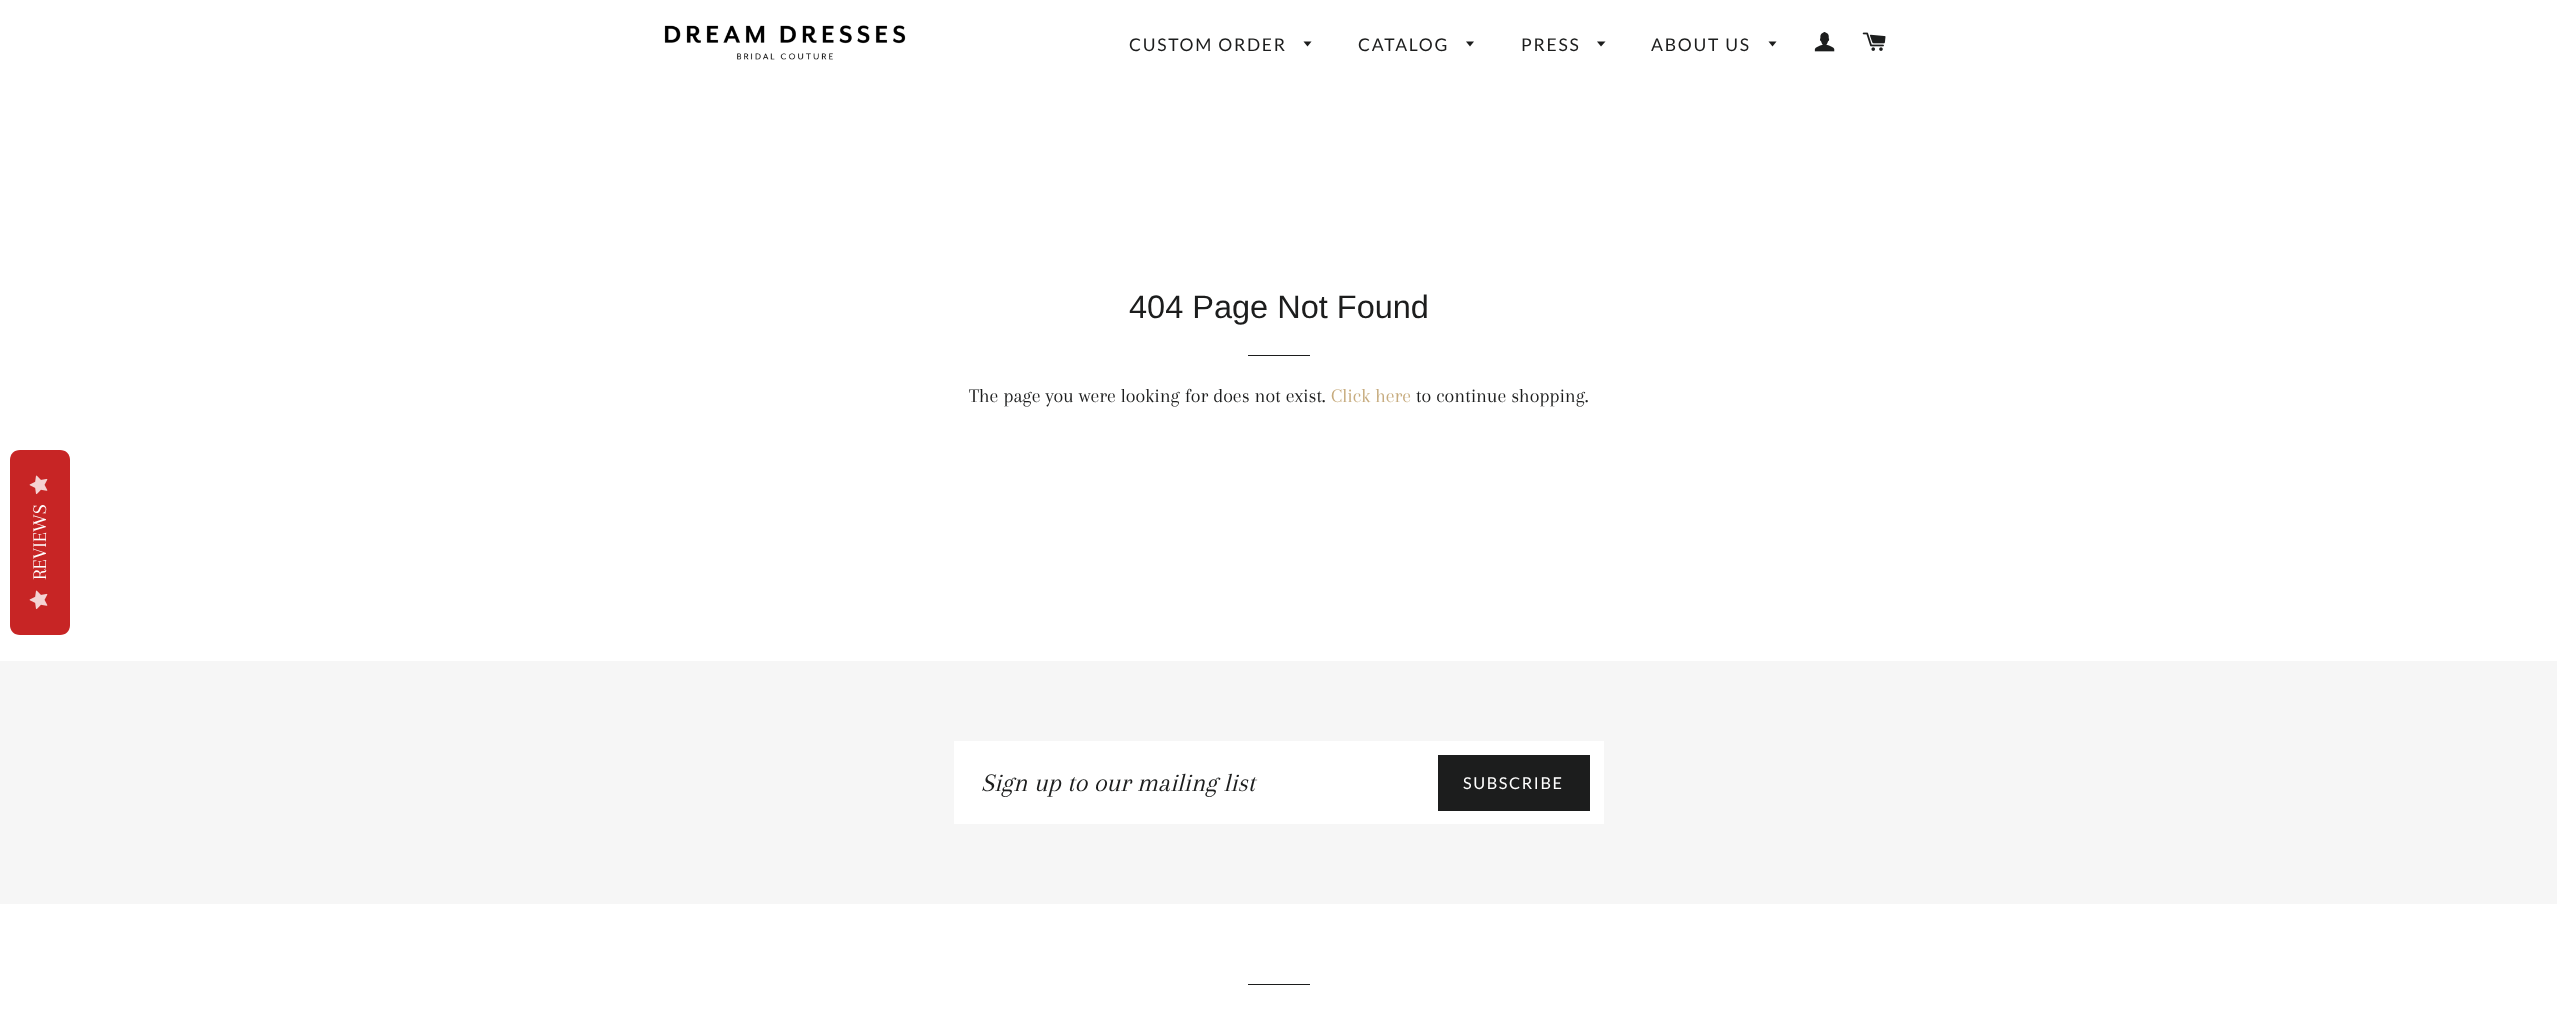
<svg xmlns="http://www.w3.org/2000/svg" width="2557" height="1025">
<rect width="100%" height="100%" fill="#fff"/>
<path d="M10 625v-165c0-6 4-10 10-10h40c6 0 10 4 10 10v165c0 6-4 10-10 10h-40c-6 0-10-4-10-10z" fill="#c72525"/>
<image x="29" y="475" width="19" height="20" href="media/1.png"/>
<text x="46" y="580" transform="rotate(-90 46 580)" style="font-family:Arapey;font-size:20px;fill:#fff">REVIEWS</text>
<image x="29" y="590" width="19" height="20" href="media/1.png"/>
<image x="664" y="25" width="242" height="35" href="media/2.png"/>
<text x="1129" y="51" style="font-family:Lato;font-size:17.5px;letter-spacing:1.75px;fill:#1c1d1d">CUSTOM ORDER</text>
<path d="M1303.5 41.5l4 5l4-5z" fill="#1c1d1d"/>
<text x="1358" y="51" style="font-family:Lato;font-size:17.5px;letter-spacing:1.75px;fill:#1c1d1d">CATALOG</text>
<path d="M1466 41.5l4 5l4-5z" fill="#1c1d1d"/>
<text x="1521" y="51" style="font-family:Lato;font-size:17.5px;letter-spacing:1.75px;fill:#1c1d1d">PRESS</text>
<path d="M1597 41.5l4 5l4.5-5z" fill="#1c1d1d"/>
<text x="1651" y="51" style="font-family:Lato;font-size:17.5px;letter-spacing:1.75px;fill:#1c1d1d">ABOUT US</text>
<path d="M1768.5 41.5l4 5l4-5z" fill="#1c1d1d"/>
<image x="1814" y="32" width="21" height="20" href="media/3.png"/>
<image x="1862" y="32" width="24" height="19" href="media/4.png"/>
<text x="1129" y="318" style="font-family:Liberation Sans;font-size:32.5px;fill:#1c1d1d">404 Page Not Found</text>
<rect x="1248" y="355" width="62" height="1" fill="#1c1d1d"/>
<text x="969" y="402" style="font-family:Arapey;font-size:20px;fill:#1c1d1d">The page you were looking for does not exist.</text>
<text x="1331" y="402" style="font-family:Arapey;font-size:20px;fill:#c7ac7f">Click here</text>
<text x="1416" y="402" style="font-family:Arapey;font-size:20px;fill:#1c1d1d">to continue shopping.</text>
<rect y="661" width="2557" height="243" fill="#f6f6f6"/>
<rect x="954" y="741" width="650" height="83" fill="#fff"/>
<text x="981" y="791" style="font-family:Arapey;font-size:26.25px;font-style:italic;fill:#1c1d1d">Sign up to our mailing list</text>
<rect x="1438" y="755" width="152" height="56" fill="#1c1d1d"/>
<text x="1463" y="789" style="font-family:Lato;font-size:16.25px;letter-spacing:1.6px;fill:#fff">SUBSCRIBE</text>
<rect x="1248" y="984" width="62" height="1" fill="#1c1d1d"/>
</svg>
